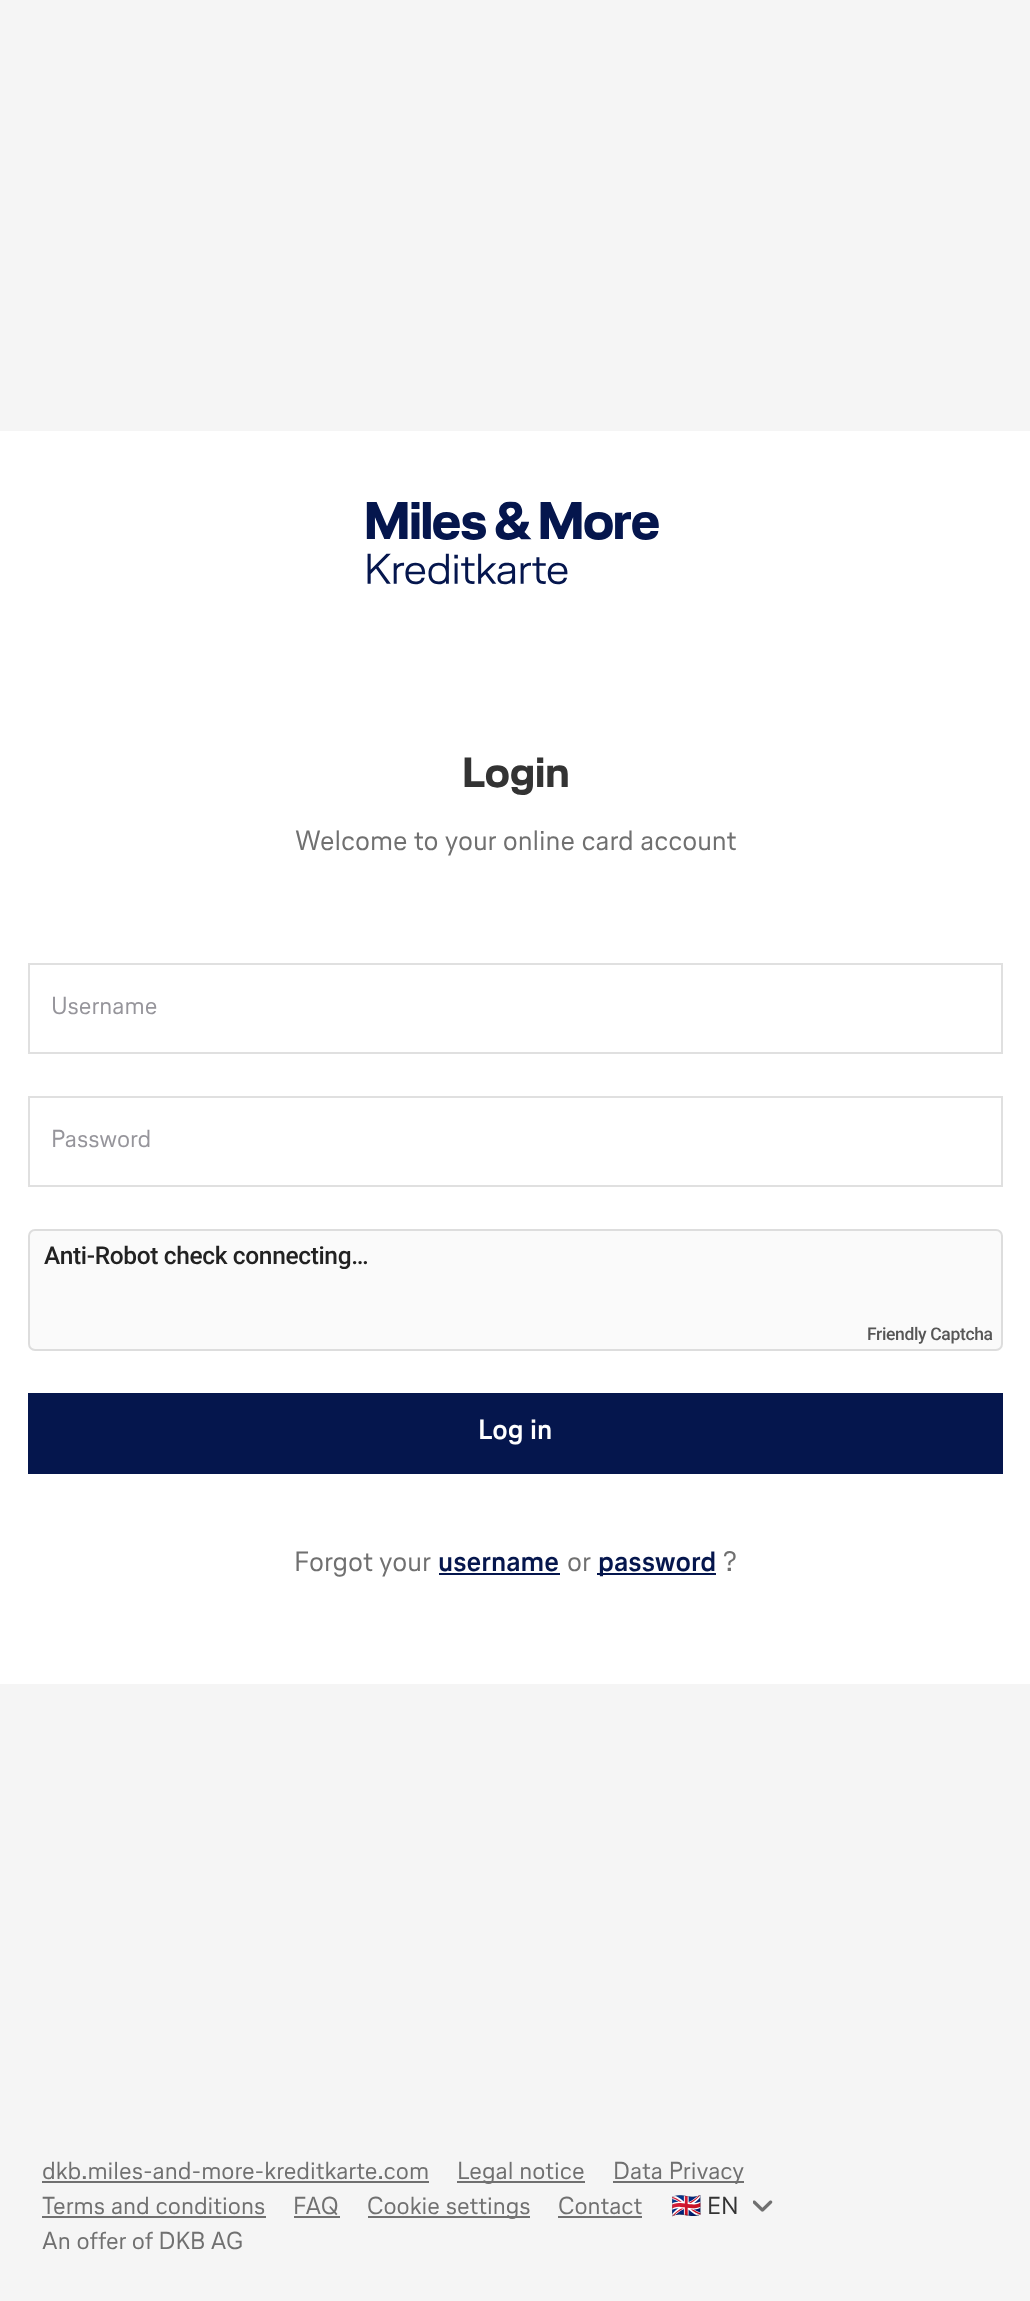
<svg xmlns="http://www.w3.org/2000/svg" width="1030" height="2301">
<rect width="100%" height="100%" fill="#f5f5f5"/>
<rect y="431" width="1030" height="1253" fill="#fff"/>
<image x="366" y="501" width="293" height="84" href="media/1.png"/>
<text x="462" y="787" style="font-family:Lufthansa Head;font-size:42px;font-weight:bold;fill:#333">Login</text>
<text x="295" y="850" style="font-family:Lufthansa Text;font-size:28px;fill:#707070">Welcome to your online card account</text>
<rect x="29" y="964" width="973" height="89" fill="none" stroke="#e0e0e0" stroke-width="2"/>
<text x="51" y="1014" style="font-family:Lufthansa Text;font-size:24.5px;fill:#96959b">Username</text>
<rect x="29" y="1097" width="973" height="89" fill="none" stroke="#e0e0e0" stroke-width="2"/>
<text x="51" y="1147" style="font-family:Lufthansa Text;font-size:24.5px;fill:#96959b">Password</text>
<rect x="29" y="1230" width="973" height="120" rx="6" fill="#fafafa" stroke="#ddd" stroke-width="2"/>
<text x="44" y="1264" style="font-family:Roboto;font-size:24.5px;font-weight:500;letter-spacing:-0.35px;fill:#222">Anti-Robot check connecting…</text>
<text x="867" y="1340" style="font-family:Roboto;font-size:17.5px;font-weight:500;letter-spacing:-0.35px;fill:#565656">Friendly Captcha</text>
<rect x="28" y="1393" width="975" height="81" fill="#05164d"/>
<text x="478" y="1439" style="font-family:Lufthansa Text;font-size:28px;font-weight:bold;fill:#fff">Log in</text>
<text x="294" y="1571" style="font-family:Lufthansa Text;font-size:28px;fill:#707070">Forgot your</text>
<text x="438" y="1571" style="font-family:Lufthansa Text;font-size:28px;font-weight:bold;fill:#05164d">username</text>
<rect x="439" y="1573" width="121" height="2" fill="#05164d"/>
<text x="567" y="1571" style="font-family:Lufthansa Text;font-size:28px;fill:#707070">or</text>
<rect x="597" y="1573" width="119" height="2" fill="#05164d"/>
<text x="598" y="1571" style="font-family:Lufthansa Text;font-size:28px;font-weight:bold;fill:#05164d">password</text>
<text x="723" y="1571" style="font-family:Lufthansa Text;font-size:28px;fill:#707070">?</text>
<text x="42" y="2179" style="font-family:Lufthansa Text;font-size:24.5px;fill:#707070">dkb.miles-and-more-kreditkarte.com</text>
<rect x="42" y="2181" width="387" height="2" fill="#707070"/>
<rect x="457" y="2181" width="128" height="2" fill="#707070"/>
<text x="457" y="2179" style="font-family:Lufthansa Text;font-size:24.5px;fill:#707070">Legal notice</text>
<rect x="613" y="2181" width="131" height="2" fill="#707070"/>
<text x="613" y="2179" style="font-family:Lufthansa Text;font-size:24.5px;fill:#707070">Data Privacy</text>
<text x="42" y="2214" style="font-family:Lufthansa Text;font-size:24.5px;fill:#707070">Terms and conditions</text>
<rect x="42" y="2216" width="224" height="2" fill="#707070"/>
<text x="293" y="2214" style="font-family:Lufthansa Text;font-size:24.5px;fill:#707070">FAQ</text>
<rect x="294" y="2216" width="46" height="2" fill="#707070"/>
<rect x="368" y="2216" width="162" height="2" fill="#707070"/>
<text x="367" y="2214" style="font-family:Lufthansa Text;font-size:24.5px;fill:#707070">Cookie settings</text>
<text x="558" y="2214" style="font-family:Lufthansa Text;font-size:24.5px;fill:#707070">Contact</text>
<rect x="558" y="2216" width="84" height="2" fill="#707070"/>
<text x="671" y="2214" style="font-family:Noto Color Emoji;font-size:24.5px;fill:#333">🇬🇧</text>
<text x="707" y="2214" style="font-family:Lufthansa Text;font-size:24.5px;fill:#333">EN</text>
<image x="753" y="2200" width="20" height="12" href="media/2.png"/>
<text x="42" y="2249" style="font-family:Lufthansa Text;font-size:24.5px;fill:#707070">An offer of DKB AG</text>
</svg>
